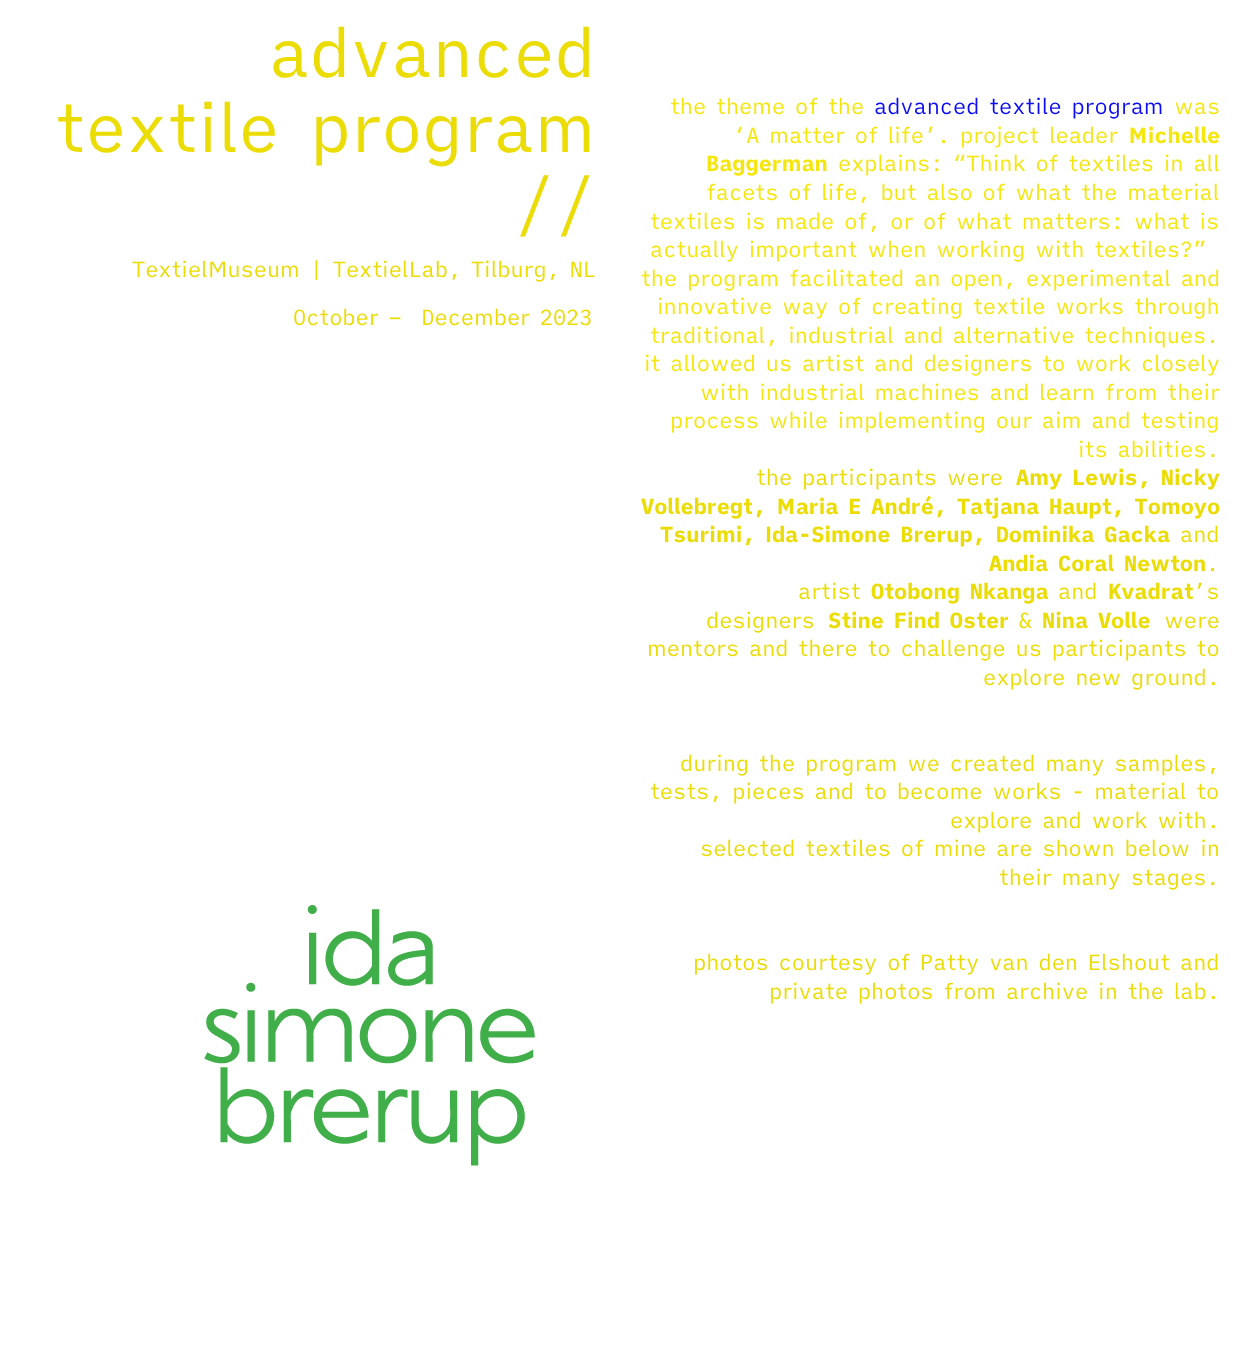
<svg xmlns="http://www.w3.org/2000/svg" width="1235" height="1370">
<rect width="100%" height="100%" fill="#fff"/>
<text x="269" y="77" style="font-family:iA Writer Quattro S;font-size:68px;fill:#ebdc03">advanced</text>
<text x="55" y="152" style="font-family:iA Writer Quattro S;font-size:68px;fill:#ebdc03">textile program</text>
<text x="514" y="227" style="font-family:iA Writer Quattro S;font-size:68px;fill:#ebdc03">//</text>
<text x="132" y="277" style="font-family:iA Writer Quattro S;font-size:21.95px;fill:#ebdc03">TextielMuseum | TextielLab, Tilburg, NL</text>
<text x="293" y="325" style="font-family:iA Writer Quattro S;font-size:21.95px;fill:#ebdc03" xml:space="preserve">October –  December 2023</text>
<text x="670" y="114" style="font-family:iA Writer Quattro S;font-size:21.95px;fill:#f5e60d">the theme of the</text>
<text x="874" y="114" style="font-family:iA Writer Quattro S;font-size:21.95px;fill:#0d0df5">advanced textile program</text>
<text x="1174" y="114" style="font-family:iA Writer Quattro S;font-size:21.95px;fill:#f5e60d">was</text>
<text x="733" y="143" style="font-family:iA Writer Quattro S;font-size:21.95px;fill:#f5e60d">‘A matter of life’. project leader</text>
<text x="1128" y="143" style="font-family:iA Writer Quattro S;font-size:21.95px;font-weight:bold;fill:#f5e60d">Michelle</text>
<text x="706" y="171" style="font-family:iA Writer Quattro S;font-size:21.95px;font-weight:bold;fill:#f5e60d">Baggerman</text>
<text x="838" y="171" style="font-family:iA Writer Quattro S;font-size:21.95px;fill:#f5e60d">explains: “Think of textiles in all</text>
<text x="706" y="200" style="font-family:iA Writer Quattro S;font-size:21.95px;fill:#f5e60d">facets of life, but also of what the material</text>
<text x="650" y="229" style="font-family:iA Writer Quattro S;font-size:21.95px;fill:#f5e60d">textiles is made of, or of what matters: what is</text>
<text x="650" y="257" style="font-family:iA Writer Quattro S;font-size:21.95px;fill:#f5e60d">actually important when working with textiles?”</text>
<text x="641" y="286" style="font-family:iA Writer Quattro S;font-size:21.95px;fill:#f5e60d">the program facilitated an open, experimental and</text>
<text x="657" y="314" style="font-family:iA Writer Quattro S;font-size:21.95px;fill:#f5e60d">innovative way of creating textile works through</text>
<text x="650" y="343" style="font-family:iA Writer Quattro S;font-size:21.95px;fill:#f5e60d">traditional, industrial and alternative techniques.</text>
<text x="644" y="371" style="font-family:iA Writer Quattro S;font-size:21.95px;fill:#f5e60d">it allowed us artist and designers to work closely</text>
<text x="700" y="400" style="font-family:iA Writer Quattro S;font-size:21.95px;fill:#f5e60d">with industrial machines and learn from their</text>
<text x="670" y="428" style="font-family:iA Writer Quattro S;font-size:21.95px;fill:#f5e60d">process while implementing our aim and testing</text>
<text x="1078" y="457" style="font-family:iA Writer Quattro S;font-size:21.95px;fill:#f5e60d">its abilities.</text>
<text x="756" y="485" style="font-family:iA Writer Quattro S;font-size:21.95px;fill:#ebdc03">the participants were</text>
<text x="1016" y="485" style="font-family:iA Writer Quattro S;font-size:21.95px;font-weight:bold;fill:#ebdc03">Amy Lewis, Nicky</text>
<text x="641" y="514" style="font-family:iA Writer Quattro S;font-size:21.95px;font-weight:bold;fill:#ebdc03">Vollebregt, Maria E André, Tatjana Haupt, Tomoyo</text>
<text x="660" y="542" style="font-family:iA Writer Quattro S;font-size:21.95px;font-weight:bold;fill:#ebdc03">Tsurimi, Ida-Simone Brerup, Dominika Gacka</text>
<text x="1180" y="542" style="font-family:iA Writer Quattro S;font-size:21.95px;fill:#ebdc03">and</text>
<text x="989" y="571" style="font-family:iA Writer Quattro S;font-size:21.95px;font-weight:bold;fill:#ebdc03">Andia Coral Newton</text>
<text x="1206" y="571" style="font-family:iA Writer Quattro S;font-size:21.95px;fill:#ebdc03">.</text>
<text x="798" y="599" style="font-family:iA Writer Quattro S;font-size:21.95px;fill:#ebdc03">artist</text>
<text x="871" y="599" style="font-family:iA Writer Quattro S;font-size:21.95px;font-weight:bold;fill:#ebdc03">Otobong Nkanga</text>
<text x="1058" y="599" style="font-family:iA Writer Quattro S;font-size:21.95px;fill:#ebdc03">and</text>
<text x="1108" y="599" style="font-family:iA Writer Quattro S;font-size:21.95px;font-weight:bold;fill:#ebdc03">Kvadrat</text>
<text x="1193" y="599" style="font-family:iA Writer Quattro S;font-size:21.95px;fill:#ebdc03">’s</text>
<text x="706" y="628" style="font-family:iA Writer Quattro S;font-size:21.95px;fill:#ebdc03">designers</text>
<text x="828" y="628" style="font-family:iA Writer Quattro S;font-size:21.95px;font-weight:bold;fill:#ebdc03">Stine Find Oster</text>
<text x="1019" y="628" style="font-family:iA Writer Quattro S;font-size:21.95px;fill:#ebdc03">&amp;</text>
<text x="1042" y="628" style="font-family:iA Writer Quattro S;font-size:21.95px;font-weight:bold;fill:#ebdc03">Nina Volle</text>
<text x="1164" y="628" style="font-family:iA Writer Quattro S;font-size:21.95px;fill:#ebdc03">were</text>
<text x="647" y="656" style="font-family:iA Writer Quattro S;font-size:21.95px;fill:#ebdc03">mentors and there to challenge us participants to</text>
<text x="983" y="685" style="font-family:iA Writer Quattro S;font-size:21.95px;fill:#ebdc03">explore new ground.</text>
<text x="680" y="771" style="font-family:iA Writer Quattro S;font-size:21.95px;fill:#ebdc03">during the program we created many samples,</text>
<text x="650" y="799" style="font-family:iA Writer Quattro S;font-size:21.95px;fill:#ebdc03">tests, pieces and to become works - material to</text>
<text x="950" y="828" style="font-family:iA Writer Quattro S;font-size:21.95px;fill:#ebdc03">explore and work with.</text>
<text x="700" y="856" style="font-family:iA Writer Quattro S;font-size:21.95px;fill:#ebdc03">selected textiles of mine are shown below in</text>
<text x="999" y="885" style="font-family:iA Writer Quattro S;font-size:21.95px;fill:#ebdc03">their many stages.</text>
<text x="693" y="970" style="font-family:iA Writer Quattro S;font-size:21.95px;fill:#ebdc03">photos courtesy of Patty van den Elshout and</text>
<text x="769" y="999" style="font-family:iA Writer Quattro S;font-size:21.95px;fill:#ebdc03">private photos from archive in the lab.</text>
<image x="204" y="905" width="331" height="261" href="media/1.png"/>
</svg>
